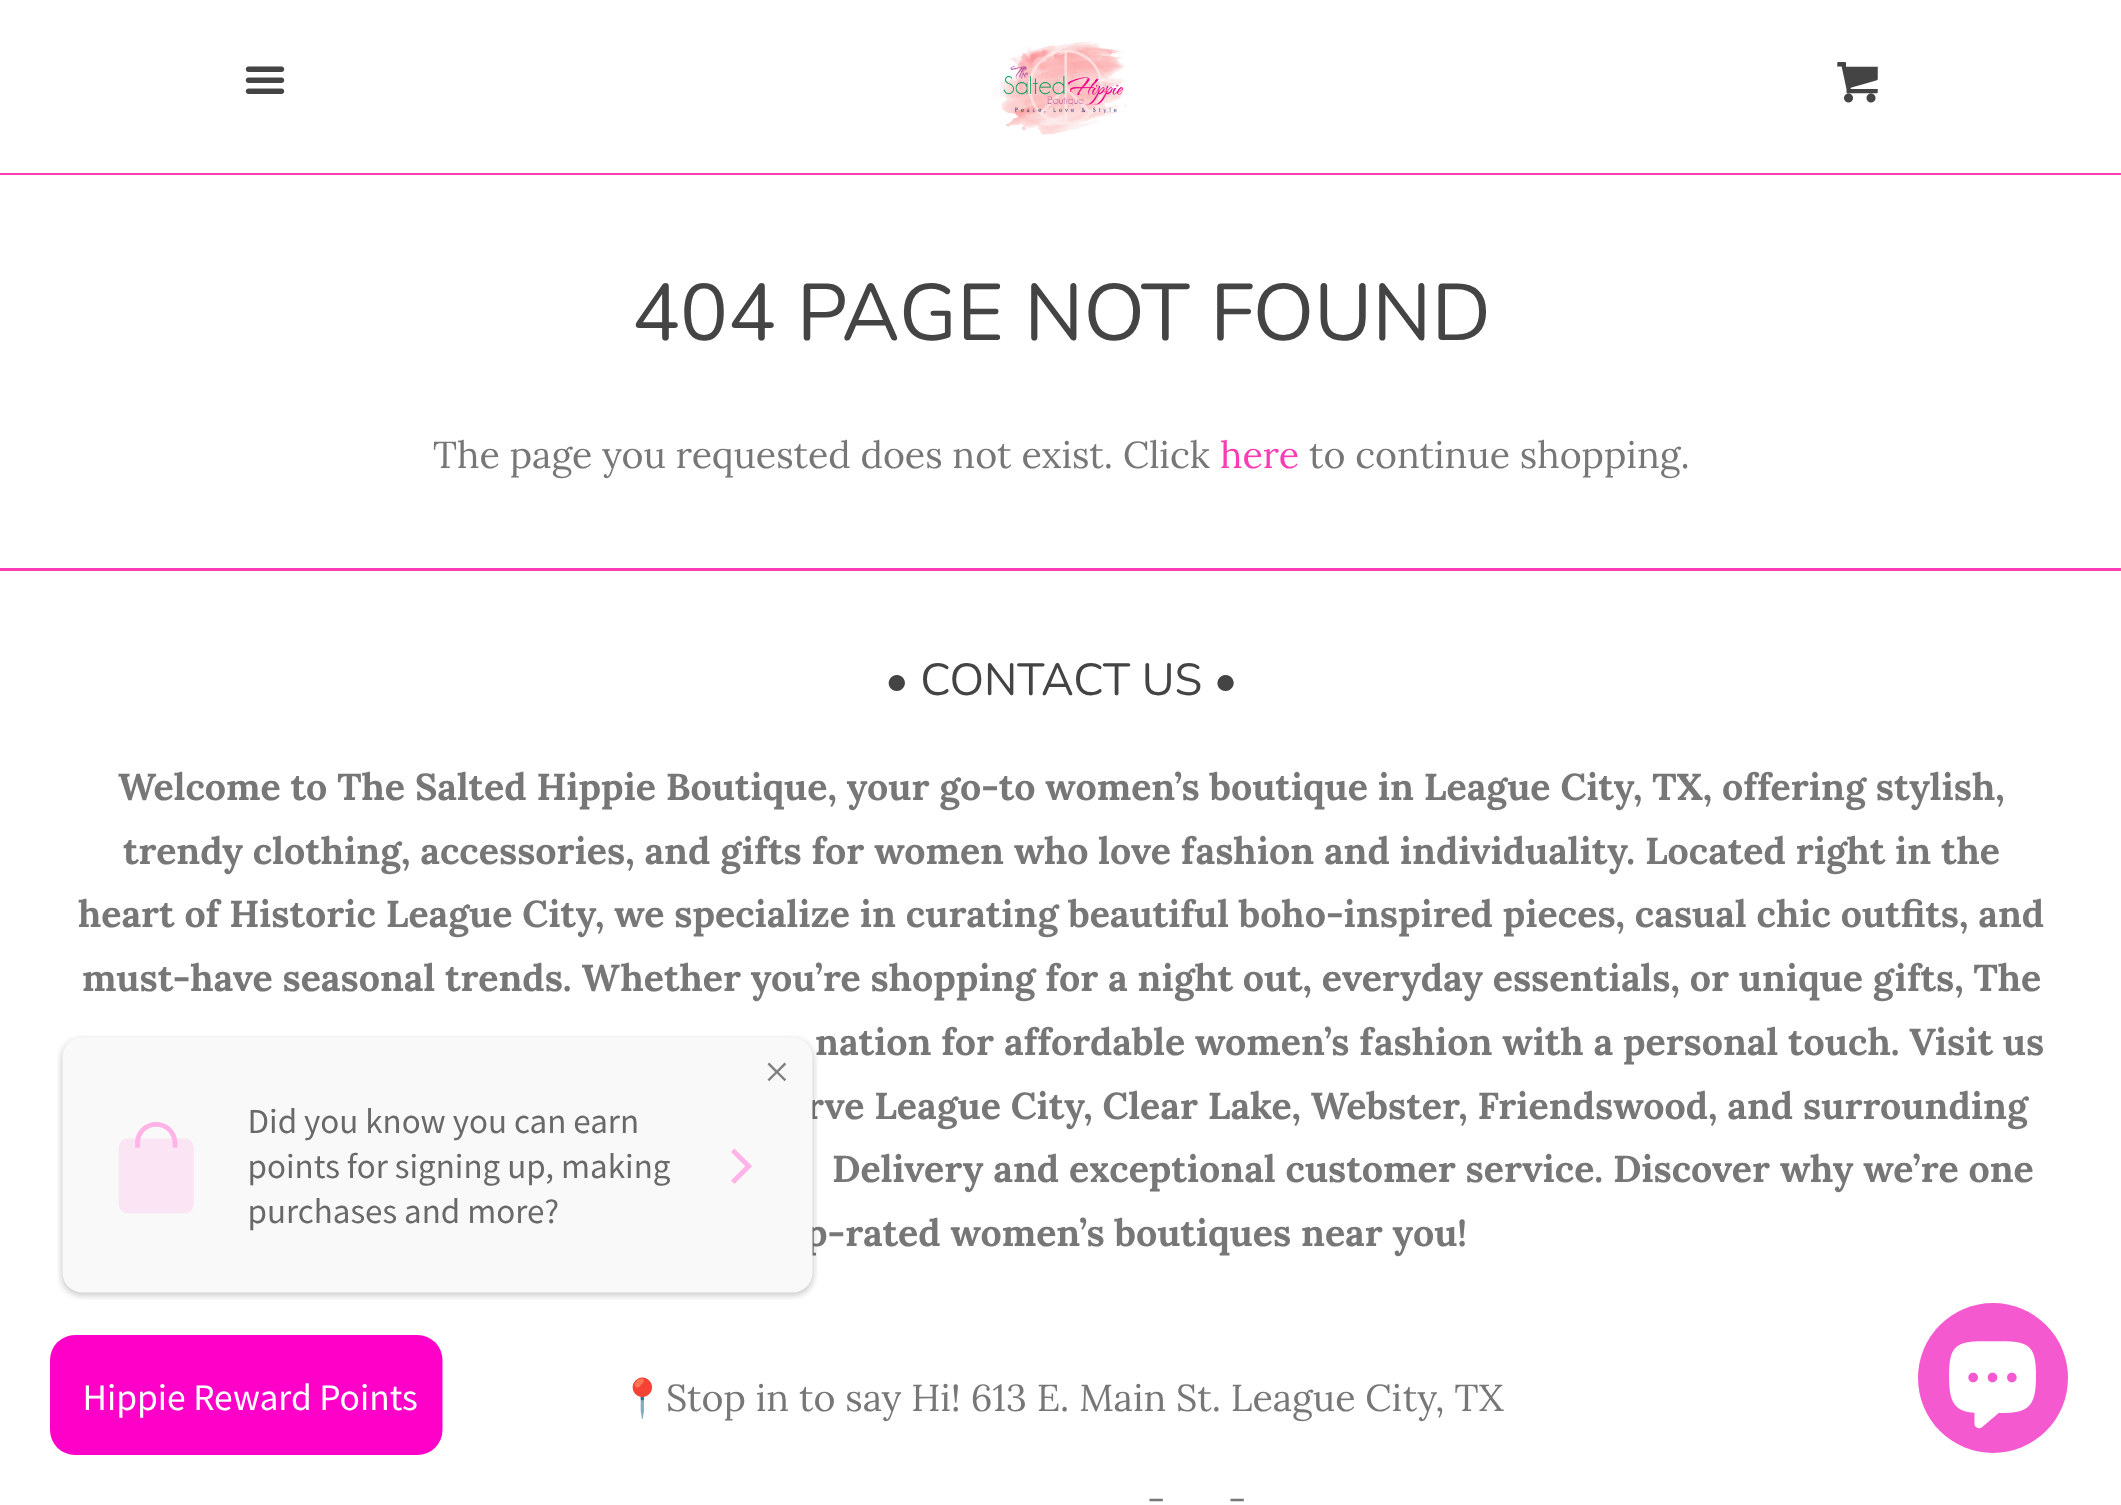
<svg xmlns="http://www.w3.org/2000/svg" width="2121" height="1505">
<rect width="100%" height="100%" fill="#fff"/>
<rect y="173" width="2121" height="2" fill="#fc3cb4"/>
<image x="245" y="66" width="40" height="28" href="media/1.png"/>
<image x="993" y="41" width="133" height="94" href="media/2.png"/>
<image x="1837" y="62" width="41" height="41" href="media/3.png"/>
<text x="632" y="340" style="font-family:Nunito;font-size:80px;font-weight:200;fill:#444">404 PAGE NOT FOUND</text>
<text x="433" y="468" style="font-family:Lora;font-size:37.5px;fill:#777">The page you requested does not exist. Click</text>
<text x="1220" y="468" style="font-family:Lora;font-size:37.5px;fill:#fc3cb4">here</text>
<text x="1309" y="468" style="font-family:Lora;font-size:37.5px;fill:#777">to continue shopping.</text>
<rect y="568" width="2121" height="3" fill="#fc3cb4"/>
<text x="885" y="695" style="font-family:Nunito;font-size:45px;font-weight:200;fill:#444">• CONTACT US •</text>
<text x="118" y="800" style="font-family:Lora;font-size:37.5px;font-weight:bold;fill:#777">Welcome to The Salted Hippie Boutique, your go-to women’s boutique in League City, TX, offering stylish,</text>
<text x="123" y="864" style="font-family:Lora;font-size:37.5px;font-weight:bold;fill:#777">trendy clothing, accessories, and gifts for women who love fashion and individuality. Located right in the</text>
<text x="78" y="927" style="font-family:Lora;font-size:37.5px;font-weight:bold;fill:#777">heart of Historic League City, we specialize in curating beautiful boho-inspired pieces, casual chic outfits, and</text>
<text x="82" y="991" style="font-family:Lora;font-size:37.5px;font-weight:bold;fill:#777">must-have seasonal trends. Whether you’re shopping for a night out, everyday essentials, or unique gifts, The</text>
<text x="815" y="1055" style="font-family:Lora;font-size:37.5px;font-weight:bold;fill:#777">nation for affordable women’s fashion with a personal touch. Visit us</text>
<text x="806" y="1119" style="font-family:Lora;font-size:37.5px;font-weight:bold;fill:#777">rve League City, Clear Lake, Webster, Friendswood, and surrounding</text>
<text x="832" y="1182" style="font-family:Lora;font-size:37.5px;font-weight:bold;fill:#777">Delivery and exceptional customer service. Discover why we’re one</text>
<text x="805" y="1246" style="font-family:Lora;font-size:37.5px;font-weight:bold;fill:#777">p-rated women’s boutiques near you!</text>
<text x="619" y="1411" style="font-family:Noto Color Emoji;font-size:37.5px;fill:#777">📍</text>
<text x="666" y="1411" style="font-family:Lora;font-size:37.5px;fill:#777">Stop in to say Hi! 613 E. Main St. League City, TX</text>
<text x="1147" y="1512" style="font-family:Lora;font-size:37.5px;fill:#777">-</text>
<text x="1228" y="1512" style="font-family:Lora;font-size:37.5px;fill:#777">-</text>
<image x="57" y="1035" width="761" height="265" href="media/4.png"/>
<image x="50" y="1335" width="393" height="120" href="media/5.png"/>
<circle cx="1993" cy="1378" r="75" fill="#f559d0"/>
<image x="1949" y="1341" width="87" height="88" href="media/6.png"/>
</svg>
